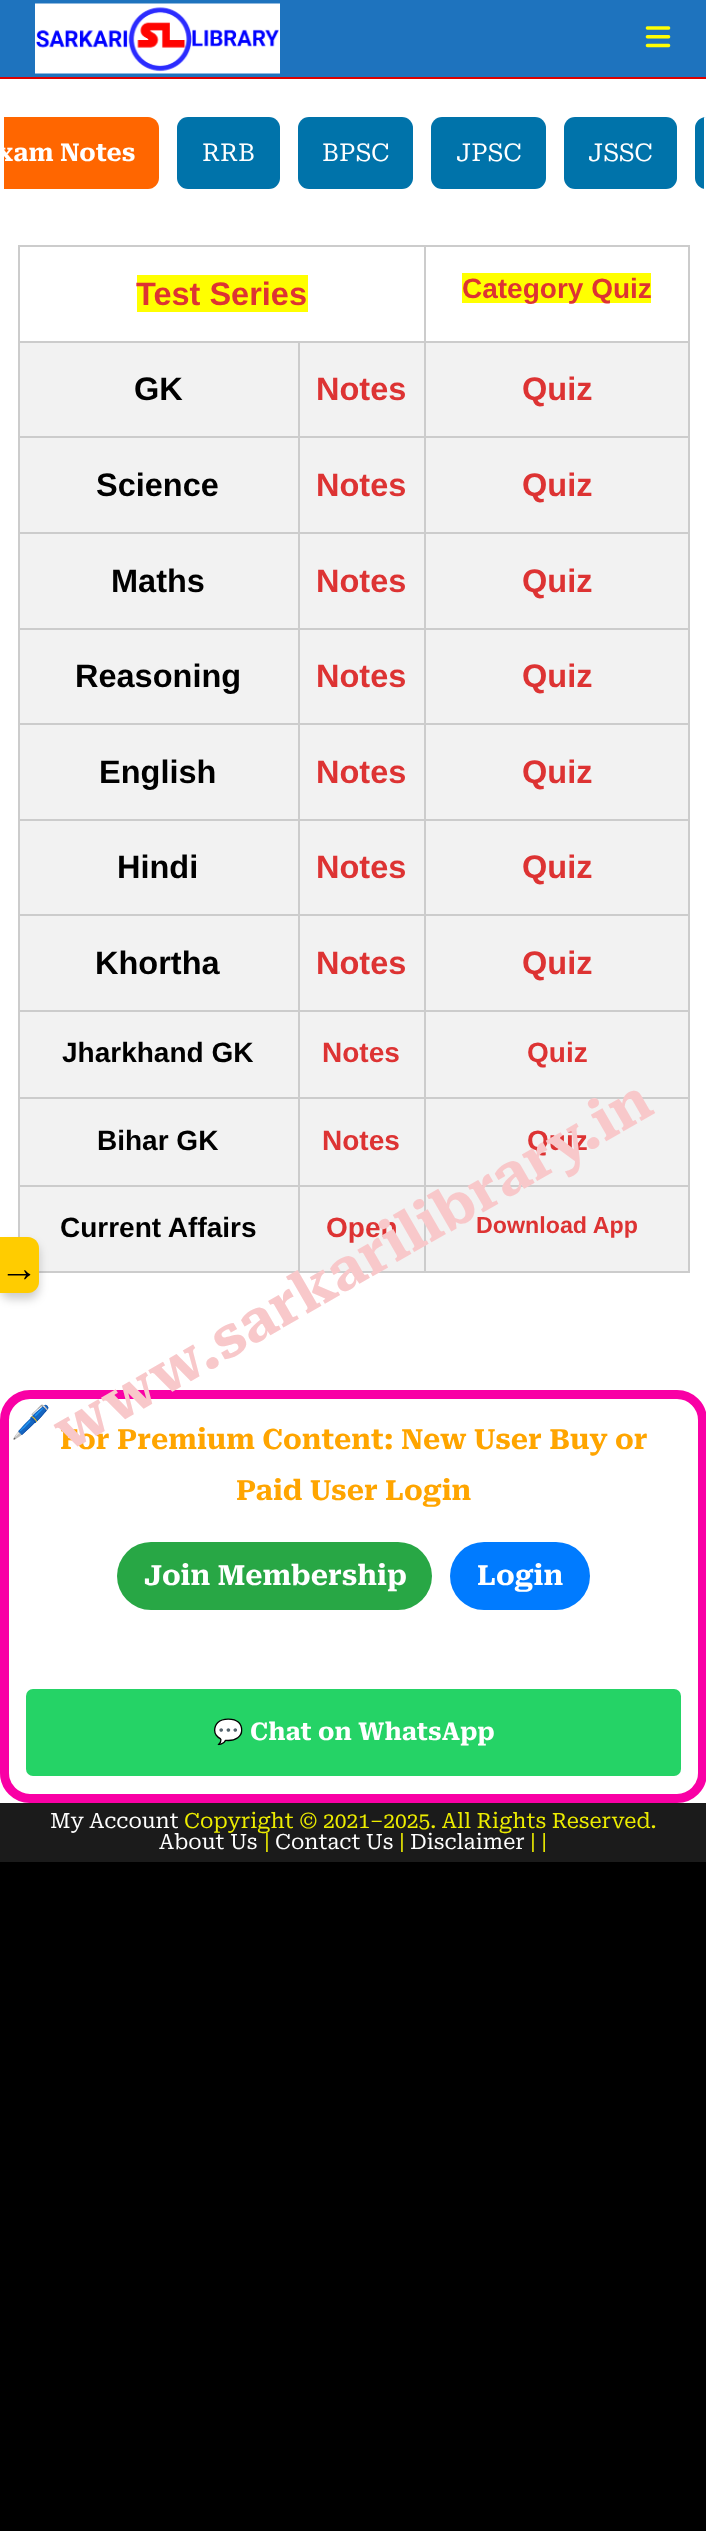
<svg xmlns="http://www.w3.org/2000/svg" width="706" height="2531">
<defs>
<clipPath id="clip1"><rect x="4" y="96" width="700" height="114"/></clipPath>
</defs>
<rect width="100%" height="100%" fill="#000"/>
<rect y="79" width="706" height="1724" fill="#fff"/>
<rect width="706" height="77" fill="#1e73be"/>
<rect y="77" width="706" height="2" fill="#d00"/>
<image x="35" y="3" width="245" height="71" href="media/1.png"/>
<image x="645" y="26" width="26" height="22" href="media/2.png"/>
<path d="M4 117h144c6 0 11 5 11 11v50c0 6-5 11-11 11h-144z" fill="#f60"/>
<g clip-path="url(#clip1)">
<text x="-3" y="161" style="font-family:Roboto Serif;font-size:24.5px;font-weight:bold;fill:#fff">xam Notes</text>
</g>
<rect x="177" y="117" width="103" height="72" rx="11" fill="#0073aa"/>
<text x="202" y="161" style="font-family:Roboto Serif;font-size:24.5px;fill:#fff">RRB</text>
<rect x="298" y="117" width="115" height="72" rx="11" fill="#0073aa"/>
<text x="322" y="161" style="font-family:Roboto Serif;font-size:24.5px;fill:#fff">BPSC</text>
<rect x="431" y="117" width="115" height="72" rx="11" fill="#0073aa"/>
<text x="456" y="161" style="font-family:Roboto Serif;font-size:24.5px;fill:#fff">JPSC</text>
<rect x="564" y="117" width="113" height="72" rx="11" fill="#0073aa"/>
<text x="588" y="161" style="font-family:Roboto Serif;font-size:24.5px;fill:#fff">JSSC</text>
<path d="M706 117h-2v72h2c-6 0-11-5-11-11v-50c0-6 5-11 11-11z" fill="#0073aa"/>
<rect x="424" y="245" width="266" height="2" fill="#ccc"/>
<rect x="424" y="341" width="266" height="2" fill="#ccc"/>
<rect x="20" y="343" width="668" height="93" fill="#f2f2f2"/>
<rect x="424" y="436" width="266" height="2" fill="#ccc"/>
<rect x="20" y="438" width="668" height="94" fill="#f2f2f2"/>
<rect x="424" y="532" width="266" height="2" fill="#ccc"/>
<rect x="20" y="534" width="668" height="94" fill="#f2f2f2"/>
<rect x="424" y="628" width="266" height="2" fill="#ccc"/>
<rect x="20" y="630" width="668" height="93" fill="#f2f2f2"/>
<rect x="424" y="723" width="266" height="2" fill="#ccc"/>
<rect x="20" y="725" width="668" height="94" fill="#f2f2f2"/>
<rect x="424" y="819" width="266" height="2" fill="#ccc"/>
<rect x="20" y="821" width="668" height="93" fill="#f2f2f2"/>
<rect x="424" y="914" width="266" height="2" fill="#ccc"/>
<rect x="20" y="916" width="668" height="94" fill="#f2f2f2"/>
<rect x="424" y="1010" width="266" height="2" fill="#ccc"/>
<rect x="20" y="1012" width="668" height="85" fill="#f2f2f2"/>
<rect x="424" y="1097" width="266" height="2" fill="#ccc"/>
<rect x="20" y="1099" width="668" height="86" fill="#f2f2f2"/>
<rect x="424" y="1185" width="266" height="2" fill="#ccc"/>
<rect x="20" y="1187" width="668" height="84" fill="#f2f2f2"/>
<rect x="688" y="1185" width="2" height="87" fill="#ccc"/>
<rect x="424" y="1271" width="266" height="2" fill="#ccc"/>
<rect x="424" y="1185" width="2" height="87" fill="#ccc"/>
<rect x="298" y="1185" width="127" height="2" fill="#ccc"/>
<rect x="424" y="1097" width="2" height="90" fill="#ccc"/>
<rect x="298" y="1097" width="127" height="2" fill="#ccc"/>
<rect x="424" y="1010" width="2" height="89" fill="#ccc"/>
<rect x="298" y="1010" width="127" height="2" fill="#ccc"/>
<rect x="424" y="914" width="2" height="98" fill="#ccc"/>
<rect x="298" y="914" width="127" height="2" fill="#ccc"/>
<rect x="424" y="819" width="2" height="96" fill="#ccc"/>
<rect x="298" y="819" width="127" height="2" fill="#ccc"/>
<rect x="424" y="723" width="2" height="98" fill="#ccc"/>
<rect x="298" y="723" width="127" height="2" fill="#ccc"/>
<rect x="424" y="628" width="2" height="97" fill="#ccc"/>
<rect x="298" y="628" width="127" height="2" fill="#ccc"/>
<rect x="424" y="532" width="2" height="98" fill="#ccc"/>
<rect x="298" y="532" width="127" height="2" fill="#ccc"/>
<rect x="424" y="436" width="2" height="98" fill="#ccc"/>
<rect x="298" y="436" width="127" height="2" fill="#ccc"/>
<rect x="424" y="341" width="2" height="97" fill="#ccc"/>
<rect x="298" y="341" width="127" height="2" fill="#ccc"/>
<rect x="424" y="245" width="2" height="98" fill="#ccc"/>
<rect x="18" y="245" width="407" height="2" fill="#ccc"/>
<rect x="298" y="1271" width="127" height="2" fill="#ccc"/>
<rect x="298" y="1185" width="2" height="87" fill="#ccc"/>
<rect x="18" y="1185" width="281" height="2" fill="#ccc"/>
<rect x="298" y="1097" width="2" height="90" fill="#ccc"/>
<rect x="18" y="1097" width="281" height="2" fill="#ccc"/>
<rect x="298" y="1010" width="2" height="89" fill="#ccc"/>
<rect x="18" y="1010" width="281" height="2" fill="#ccc"/>
<rect x="298" y="914" width="2" height="98" fill="#ccc"/>
<rect x="18" y="914" width="281" height="2" fill="#ccc"/>
<rect x="298" y="819" width="2" height="96" fill="#ccc"/>
<rect x="18" y="819" width="281" height="2" fill="#ccc"/>
<rect x="298" y="723" width="2" height="98" fill="#ccc"/>
<rect x="18" y="723" width="281" height="2" fill="#ccc"/>
<rect x="298" y="628" width="2" height="97" fill="#ccc"/>
<rect x="18" y="628" width="281" height="2" fill="#ccc"/>
<rect x="298" y="532" width="2" height="98" fill="#ccc"/>
<rect x="18" y="532" width="281" height="2" fill="#ccc"/>
<rect x="298" y="436" width="2" height="98" fill="#ccc"/>
<rect x="18" y="436" width="281" height="2" fill="#ccc"/>
<rect x="298" y="341" width="2" height="97" fill="#ccc"/>
<rect x="18" y="341" width="281" height="2" fill="#ccc"/>
<rect x="18" y="1185" width="2" height="52" fill="#ccc"/>
<rect x="18" y="1097" width="2" height="90" fill="#ccc"/>
<rect x="18" y="1010" width="2" height="89" fill="#ccc"/>
<rect x="18" y="914" width="2" height="98" fill="#ccc"/>
<rect x="18" y="819" width="2" height="96" fill="#ccc"/>
<rect x="18" y="723" width="2" height="98" fill="#ccc"/>
<rect x="18" y="628" width="2" height="97" fill="#ccc"/>
<rect x="18" y="532" width="2" height="98" fill="#ccc"/>
<rect x="18" y="436" width="2" height="98" fill="#ccc"/>
<rect x="18" y="341" width="2" height="97" fill="#ccc"/>
<rect x="18" y="245" width="2" height="98" fill="#ccc"/>
<rect x="137" y="275" width="171" height="37" fill="#ff0"/>
<text x="136" y="305" style="font-family:Liberation Sans;font-size:32.5px;font-weight:bold;fill:#d33">Test Series</text>
<rect x="688" y="1097" width="2" height="90" fill="#ccc"/>
<rect x="688" y="1010" width="2" height="89" fill="#ccc"/>
<rect x="688" y="914" width="2" height="98" fill="#ccc"/>
<rect x="688" y="819" width="2" height="96" fill="#ccc"/>
<rect x="688" y="723" width="2" height="98" fill="#ccc"/>
<rect x="688" y="628" width="2" height="97" fill="#ccc"/>
<rect x="688" y="532" width="2" height="98" fill="#ccc"/>
<rect x="688" y="436" width="2" height="98" fill="#ccc"/>
<rect x="688" y="341" width="2" height="97" fill="#ccc"/>
<rect x="688" y="245" width="2" height="98" fill="#ccc"/>
<rect x="462" y="273" width="189" height="30" fill="#ff0"/>
<text x="462" y="298" style="font-family:Liberation Sans;font-size:28px;font-weight:bold;fill:#d33">Category Quiz</text>
<text x="134" y="400" style="font-family:Liberation Sans;font-size:32.5px;font-weight:bold;fill:#000">GK</text>
<text x="316" y="400" style="font-family:Liberation Sans;font-size:32.5px;font-weight:bold;fill:#d33">Notes</text>
<text x="522" y="400" style="font-family:Liberation Sans;font-size:32.5px;font-weight:bold;fill:#d33">Quiz</text>
<text x="96" y="496" style="font-family:Liberation Sans;font-size:32.5px;font-weight:bold;fill:#000">Science</text>
<text x="316" y="496" style="font-family:Liberation Sans;font-size:32.5px;font-weight:bold;fill:#d33">Notes</text>
<text x="522" y="496" style="font-family:Liberation Sans;font-size:32.5px;font-weight:bold;fill:#d33">Quiz</text>
<text x="111" y="592" style="font-family:Liberation Sans;font-size:32.5px;font-weight:bold;fill:#000">Maths</text>
<text x="316" y="592" style="font-family:Liberation Sans;font-size:32.5px;font-weight:bold;fill:#d33">Notes</text>
<text x="522" y="592" style="font-family:Liberation Sans;font-size:32.5px;font-weight:bold;fill:#d33">Quiz</text>
<text x="75" y="687" style="font-family:Liberation Sans;font-size:32.5px;font-weight:bold;fill:#000">Reasoning</text>
<text x="316" y="687" style="font-family:Liberation Sans;font-size:32.5px;font-weight:bold;fill:#d33">Notes</text>
<text x="522" y="687" style="font-family:Liberation Sans;font-size:32.5px;font-weight:bold;fill:#d33">Quiz</text>
<text x="99" y="783" style="font-family:Liberation Sans;font-size:32.5px;font-weight:bold;fill:#000">English</text>
<text x="316" y="783" style="font-family:Liberation Sans;font-size:32.5px;font-weight:bold;fill:#d33">Notes</text>
<text x="522" y="783" style="font-family:Liberation Sans;font-size:32.5px;font-weight:bold;fill:#d33">Quiz</text>
<text x="117" y="878" style="font-family:Liberation Sans;font-size:32.5px;font-weight:bold;fill:#000">Hindi</text>
<text x="316" y="878" style="font-family:Liberation Sans;font-size:32.5px;font-weight:bold;fill:#d33">Notes</text>
<text x="522" y="878" style="font-family:Liberation Sans;font-size:32.5px;font-weight:bold;fill:#d33">Quiz</text>
<text x="95" y="974" style="font-family:Liberation Sans;font-size:32.5px;font-weight:bold;fill:#000">Khortha</text>
<text x="316" y="974" style="font-family:Liberation Sans;font-size:32.5px;font-weight:bold;fill:#d33">Notes</text>
<text x="522" y="974" style="font-family:Liberation Sans;font-size:32.5px;font-weight:bold;fill:#d33">Quiz</text>
<text x="62" y="1062" style="font-family:Liberation Sans;font-size:28px;font-weight:bold;fill:#000">Jharkhand GK</text>
<text x="322" y="1062" style="font-family:Liberation Sans;font-size:28px;font-weight:bold;fill:#d33">Notes</text>
<text x="527" y="1062" style="font-family:Liberation Sans;font-size:28px;font-weight:bold;fill:#d33">Quiz</text>
<text x="97" y="1150" style="font-family:Liberation Sans;font-size:28px;font-weight:bold;fill:#000">Bihar GK</text>
<text x="322" y="1150" style="font-family:Liberation Sans;font-size:28px;font-weight:bold;fill:#d33">Notes</text>
<text x="527" y="1150" style="font-family:Liberation Sans;font-size:28px;font-weight:bold;fill:#d33">Quiz</text>
<rect x="39" y="1271" width="260" height="2" fill="#ccc"/>
<text x="60" y="1237" style="font-family:Liberation Sans;font-size:28px;font-weight:bold;fill:#000">Current Affairs</text>
<text x="326" y="1237" style="font-family:Liberation Sans;font-size:28px;font-weight:bold;fill:#d33">Open</text>
<text x="476" y="1233" style="font-family:Liberation Sans;font-size:23.25px;font-weight:bold;fill:#d33">Download App</text>
<rect x="4.5" y="1394.5" width="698" height="404" rx="25.5" fill="none" stroke="#f900a5" stroke-width="9"/>
<text x="60" y="1449" style="font-family:Roboto Serif;font-size:28px;font-weight:bold;fill:#ffa500">For Premium Content: New User Buy or</text>
<text x="236" y="1500" style="font-family:Roboto Serif;font-size:28px;font-weight:bold;fill:#ffa500">Paid User Login</text>
<rect x="117" y="1542" width="315" height="68" rx="34" fill="#28a745"/>
<text x="144" y="1585" style="font-family:Roboto Serif;font-size:28px;font-weight:bold;fill:#fff">Join Membership</text>
<rect x="450" y="1542" width="140" height="68" rx="34" fill="#007bff"/>
<text x="477" y="1585" style="font-family:Roboto Serif;font-size:28px;font-weight:bold;fill:#fff">Login</text>
<rect x="26" y="1689" width="655" height="87" rx="7" fill="#25d366"/>
<text x="213" y="1740" style="font-family:Noto Color Emoji;font-size:24.5px;font-weight:bold;fill:#fff">💬</text>
<text x="250" y="1740" style="font-family:Roboto Serif;font-size:24.5px;font-weight:bold;fill:#fff">Chat on WhatsApp</text>
<rect y="1803" width="706" height="59" fill="#1b1b1b"/>
<text x="50" y="1828" style="font-family:Roboto Serif;font-size:21px;fill:#fff">My Account</text>
<text x="184" y="1828" style="font-family:Roboto Serif;font-size:21px;fill:#eded00">Copyright © 2021–2025. All Rights Reserved.</text>
<text x="159" y="1849" style="font-family:Roboto Serif;font-size:21px;fill:#fff">About Us</text>
<text x="264" y="1849" style="font-family:Roboto Serif;font-size:21px;fill:#eded00">|</text>
<text x="275" y="1849" style="font-family:Roboto Serif;font-size:21px;fill:#fff">Contact Us</text>
<text x="399" y="1849" style="font-family:Roboto Serif;font-size:21px;fill:#eded00">|</text>
<text x="410" y="1849" style="font-family:Roboto Serif;font-size:21px;fill:#fff">Disclaimer</text>
<text x="530" y="1849" style="font-family:Roboto Serif;font-size:21px;fill:#eded00">| |</text>
<rect y="1243" width="39" height="56" rx="11" fill="#00000033" filter="blur(5px)"/>
<path d="M0 1237h28c6 0 11 5 11 11v34c0 6-5 11-11 11h-28z" fill="#fc0"/>
<text x="0" y="1281" style="font-family:Liberation Serif;font-size:38px;fill:#000">→</text>
<text x="68" y="1452" transform="rotate(-30 68 1452)" style="font-family:Roboto Serif;font-size:56.5px;font-weight:bold;fill:#f8c8ca">www.sarkarilibrary.in</text>
<text x="11" y="1433" style="font-family:Noto Color Emoji;font-size:32px;fill:#f00">🖊️</text>
</svg>
